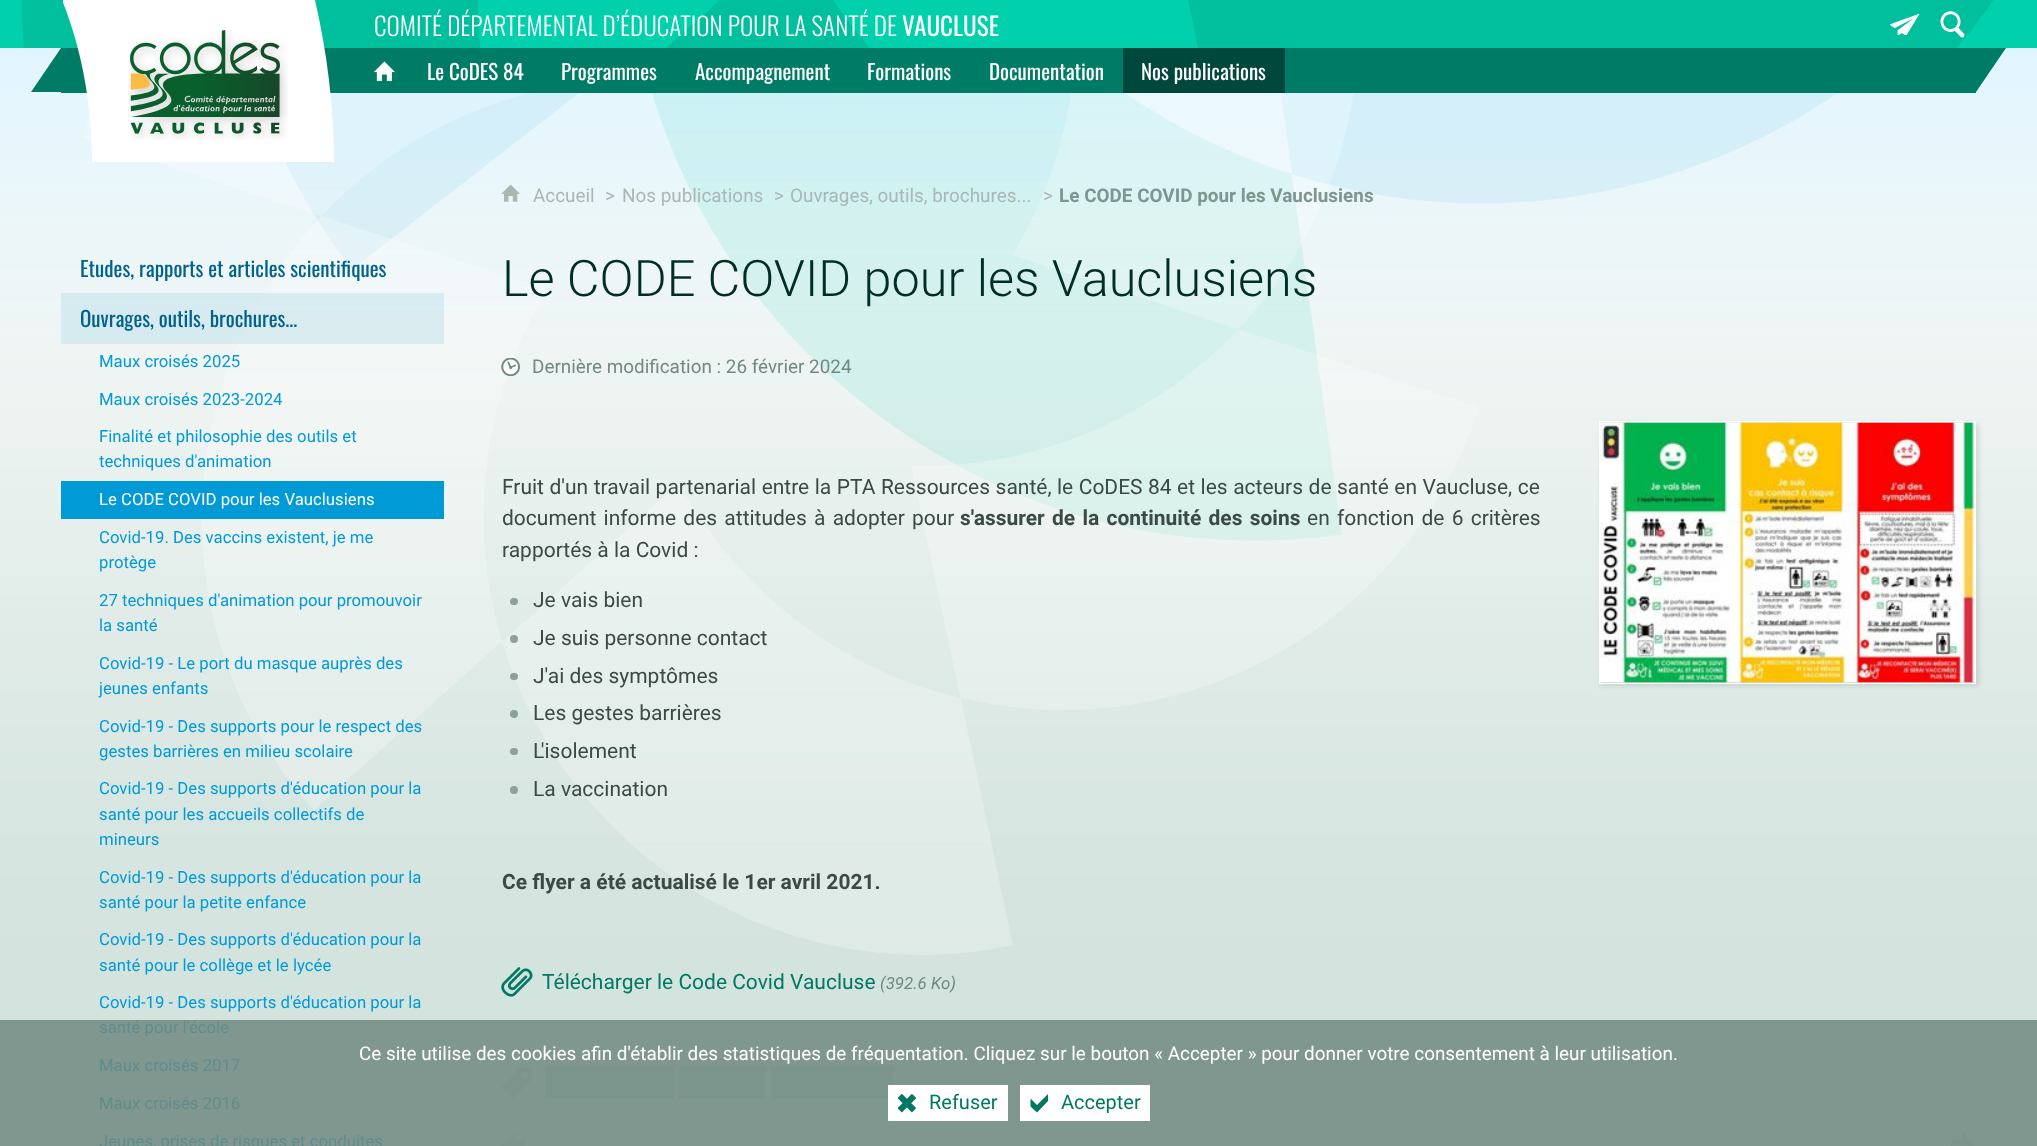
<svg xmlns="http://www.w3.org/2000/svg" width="2037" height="1146">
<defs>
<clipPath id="clip1"><rect x="63" width="271" height="163"/></clipPath>
</defs>
<rect width="100%" height="100%" fill="#d3e3de"/>
<rect y="1020" width="2037" height="126" fill="#80978f"/>
<image x="0" y="48" width="2037" height="907" href="media/1.png"/>
<rect width="2037" height="48" fill="#00d0ab"/>
<image x="22" y="0" width="1971" height="48" href="media/3.png"/>
<rect x="61" y="48" width="1915" height="45" fill="#007b65"/>
<g clip-path="url(#clip1)">
<path d="M92 162h242c0-55-7-110-19-162h-253c20 50 30 105 30 162z" fill="#fff" fill-rule="evenodd"/>
</g>
<image x="128" y="30" width="160" height="110" href="media/2.png"/>
<text x="374" y="36" style="font-family:Oswald;font-size:25.2px;font-weight:300;fill:#fff">COMITÉ DÉPARTEMENTAL D’ÉDUCATION POUR LA SANTÉ DE</text>
<text x="902" y="36" style="font-family:Oswald;font-size:25.2px;fill:#fff">VAUCLUSE</text>
<image x="1940" y="11" width="25" height="27" href="media/4.png"/>
<path d="M61 92h-30l30-44z" fill="#007b65"/>
<image x="1890" y="14" width="30" height="21" href="media/5.png"/>
<image x="374" y="61" width="21" height="21" href="media/6.png"/>
<text x="427" y="80" style="font-family:Oswald;font-size:21px;fill:#fff">Le CoDES 84</text>
<text x="561" y="80" style="font-family:Oswald;font-size:21px;fill:#fff">Programmes</text>
<text x="695" y="80" style="font-family:Oswald;font-size:21px;fill:#fff">Accompagnement</text>
<text x="867" y="80" style="font-family:Oswald;font-size:21px;fill:#fff">Formations</text>
<text x="989" y="80" style="font-family:Oswald;font-size:21px;fill:#fff">Documentation</text>
<rect x="1123" y="48" width="162" height="45" fill="#00483b"/>
<text x="1141" y="80" style="font-family:Oswald;font-size:21px;fill:#fff">Nos publications</text>
<path d="M1976 48h30l-30 44z" fill="#007b65"/>
<text x="80" y="277" style="font-family:Oswald;font-size:21px;fill:#006389">Etudes, rapports et articles scientifiques</text>
<rect x="61" y="293" width="383" height="51" fill="#0088bc1a"/>
<text x="80" y="327" style="font-family:Oswald;font-size:21px;fill:#006389">Ouvrages, outils, brochures...</text>
<text x="99" y="367" style="font-family:Roboto;font-size:16.75px;fill:#009ad6">Maux croisés 2025</text>
<text x="99" y="405" style="font-family:Roboto;font-size:16.75px;fill:#009ad6">Maux croisés 2023-2024</text>
<text x="99" y="442" style="font-family:Roboto;font-size:16.75px;fill:#009ad6">Finalité et philosophie des outils et</text>
<text x="99" y="467" style="font-family:Roboto;font-size:16.75px;fill:#009ad6">techniques d'animation</text>
<rect x="61" y="481" width="383" height="38" fill="#009ad6"/>
<text x="99" y="505" style="font-family:Roboto;font-size:16.75px;fill:#fff">Le CODE COVID pour les Vauclusiens</text>
<text x="99" y="543" style="font-family:Roboto;font-size:16.75px;fill:#009ad6">Covid-19. Des vaccins existent, je me</text>
<text x="99" y="568" style="font-family:Roboto;font-size:16.75px;fill:#009ad6">protège</text>
<text x="99" y="606" style="font-family:Roboto;font-size:16.75px;fill:#009ad6">27 techniques d'animation pour promouvoir</text>
<text x="99" y="631" style="font-family:Roboto;font-size:16.75px;fill:#009ad6">la santé</text>
<text x="99" y="669" style="font-family:Roboto;font-size:16.75px;fill:#009ad6">Covid-19 - Le port du masque auprès des</text>
<text x="99" y="694" style="font-family:Roboto;font-size:16.75px;fill:#009ad6">jeunes enfants</text>
<text x="99" y="732" style="font-family:Roboto;font-size:16.75px;fill:#009ad6">Covid-19 - Des supports pour le respect des</text>
<text x="99" y="757" style="font-family:Roboto;font-size:16.75px;fill:#009ad6">gestes barrières en milieu scolaire</text>
<text x="99" y="794" style="font-family:Roboto;font-size:16.75px;fill:#009ad6">Covid-19 - Des supports d'éducation pour la</text>
<text x="99" y="820" style="font-family:Roboto;font-size:16.75px;fill:#009ad6">santé pour les accueils collectifs de</text>
<text x="99" y="845" style="font-family:Roboto;font-size:16.75px;fill:#009ad6">mineurs</text>
<text x="99" y="883" style="font-family:Roboto;font-size:16.75px;fill:#009ad6">Covid-19 - Des supports d'éducation pour la</text>
<text x="99" y="908" style="font-family:Roboto;font-size:16.75px;fill:#009ad6">santé pour la petite enfance</text>
<text x="99" y="945" style="font-family:Roboto;font-size:16.75px;fill:#009ad6">Covid-19 - Des supports d'éducation pour la</text>
<text x="99" y="971" style="font-family:Roboto;font-size:16.75px;fill:#009ad6">santé pour le collège et le lycée</text>
<text x="99" y="1008" style="font-family:Roboto;font-size:16.75px;fill:#009ad6">Covid-19 - Des supports d'éducation pour la</text>
<text x="99" y="1033" style="font-family:Roboto;font-size:16.75px;fill:#608c8e">santé pour l'école</text>
<text x="99" y="1071" style="font-family:Roboto;font-size:16.75px;fill:#608c8e">Maux croisés 2017</text>
<text x="99" y="1109" style="font-family:Roboto;font-size:16.75px;fill:#608c8e">Maux croisés 2016</text>
<text x="99" y="1147" style="font-family:Roboto;font-size:16.75px;fill:#608c8e">Jeunes, prises de risques et conduites</text>
<image x="501" y="184" width="19" height="18" href="media/7.png"/>
<text x="533" y="202" style="font-family:Roboto;font-size:18.9px;fill:#a9b8b3">Accueil</text>
<text x="605" y="202" style="font-family:Roboto;font-size:18.9px;fill:#a9b8b3">&gt;</text>
<text x="622" y="202" style="font-family:Roboto;font-size:18.9px;fill:#a9b8b3">Nos publications</text>
<text x="774" y="202" style="font-family:Roboto;font-size:18.9px;fill:#a9b8b3">&gt;</text>
<text x="790" y="202" style="font-family:Roboto;font-size:18.9px;fill:#a9b8b3">Ouvrages, outils, brochures...</text>
<text x="1043" y="202" style="font-family:Roboto;font-size:18.9px;fill:#a9b8b3">&gt;</text>
<text x="1059" y="202" style="font-family:Roboto;font-size:18.9px;font-weight:bold;fill:#7f968e">Le CODE COVID pour les Vauclusiens</text>
<text x="502" y="296" style="font-family:Roboto;font-size:50.4px;font-weight:300;fill:#002e26">Le CODE COVID pour les Vauclusiens</text>
<image x="501" y="358" width="19" height="18" href="media/8.png"/>
<text x="532" y="373" style="font-family:Roboto;font-size:18.9px;fill:#718a81">Dernière modification : 26 février 2024</text>
<text x="502" y="494" word-spacing="0.3" style="font-family:Roboto;font-size:21px;fill:#3c4a45">Fruit d'un travail partenarial entre la PTA Ressources santé, le CoDES 84 et les acteurs de santé en Vaucluse, ce</text>
<text x="502" y="525" word-spacing="2" style="font-family:Roboto;font-size:21px;fill:#3c4a45">document informe des attitudes à adopter pour</text>
<text x="960" y="525" word-spacing="2" style="font-family:Roboto;font-size:21px;font-weight:bold;fill:#3c4a45">s'assurer de la continuité des soins</text>
<text x="1307" y="525" word-spacing="2" style="font-family:Roboto;font-size:21px;fill:#3c4a45">en fonction de 6 critères</text>
<text x="502" y="557" style="font-family:Roboto;font-size:21px;fill:#3c4a45">rapportés à la Covid :</text>
<rect x="510" y="598" width="8" height="7" rx="3.5" fill="#8da19a"/>
<text x="533" y="607" style="font-family:Roboto;font-size:21px;fill:#3c4a45">Je vais bien</text>
<circle cx="514" cy="639" r="4" fill="#8da19a"/>
<text x="533" y="645" style="font-family:Roboto;font-size:21px;fill:#3c4a45">Je suis personne contact</text>
<rect x="510" y="673" width="8" height="7" rx="3.5" fill="#8da19a"/>
<text x="533" y="683" style="font-family:Roboto;font-size:21px;fill:#3c4a45">J'ai des symptômes</text>
<circle cx="514" cy="714" r="4" fill="#8da19a"/>
<text x="533" y="720" style="font-family:Roboto;font-size:21px;fill:#3c4a45">Les gestes barrières</text>
<rect x="510" y="748" width="8" height="7" rx="3.5" fill="#8da19a"/>
<text x="533" y="758" style="font-family:Roboto;font-size:21px;fill:#3c4a45">L'isolement</text>
<circle cx="514" cy="790" r="4" fill="#8da19a"/>
<text x="533" y="796" style="font-family:Roboto;font-size:21px;fill:#3c4a45">La vaccination</text>
<text x="502" y="889" style="font-family:Roboto;font-size:21px;font-weight:bold;fill:#3c4a45">Ce flyer a été actualisé le 1er avril 2021.</text>
<rect x="1601" y="424" width="378" height="262" fill="#0000001a" filter="blur(2.5px)"/>
<rect x="1599.5" y="421.5" width="376" height="262" fill="none" stroke="#fff"/>
<image x="1600" y="422" width="375" height="261" href="media/9.png"/>
<image x="501" y="967" width="32" height="30" href="media/10.png"/>
<text x="542" y="989" style="font-family:Roboto;font-size:21px;fill:#007862">Télécharger le Code Covid Vaucluse</text>
<text x="880" y="989" style="font-family:Roboto;font-size:16.75px;font-style:italic;fill:#718a81">(392.6 Ko)</text>
<image x="501" y="1068" width="32" height="31" href="media/11.png"/>
<rect x="545" y="1066" width="129" height="33" fill="#7c958c"/>
<rect x="679" y="1066" width="87" height="33" fill="#7c958c"/>
<rect x="771" y="1066" width="123" height="33" fill="#7c958c"/>
<path d="M515.5 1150h10.5v-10h-10.5v-7.5l-14.5 12.5l14.5 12.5v-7.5" fill="#7d948c"/>
<path d="M1962 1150v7.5l14-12.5l-14-12.5v7.5h-11v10h11" fill="#7d948c"/>
<text x="359" y="1060" style="font-family:Roboto;font-size:18.9px;fill:#fff">Ce site utilise des cookies afin d'établir des statistiques de fréquentation. Cliquez sur le bouton « Accepter » pour donner votre consentement à leur utilisation.</text>
<rect x="888" y="1085" width="120" height="36" fill="#fff"/>
<image x="898" y="1094" width="18" height="19" href="media/12.png"/>
<text x="929" y="1109" style="font-family:Roboto;font-size:20px;fill:#007862">Refuser</text>
<rect x="1020" y="1085" width="130" height="36" fill="#fff"/>
<path d="M1048 1101l-11 11.5l-6.5-6v-8l6.5 6.5l11-11z" fill="#007862"/>
<text x="1061" y="1109" style="font-family:Roboto;font-size:20px;fill:#007862">Accepter</text>
</svg>
